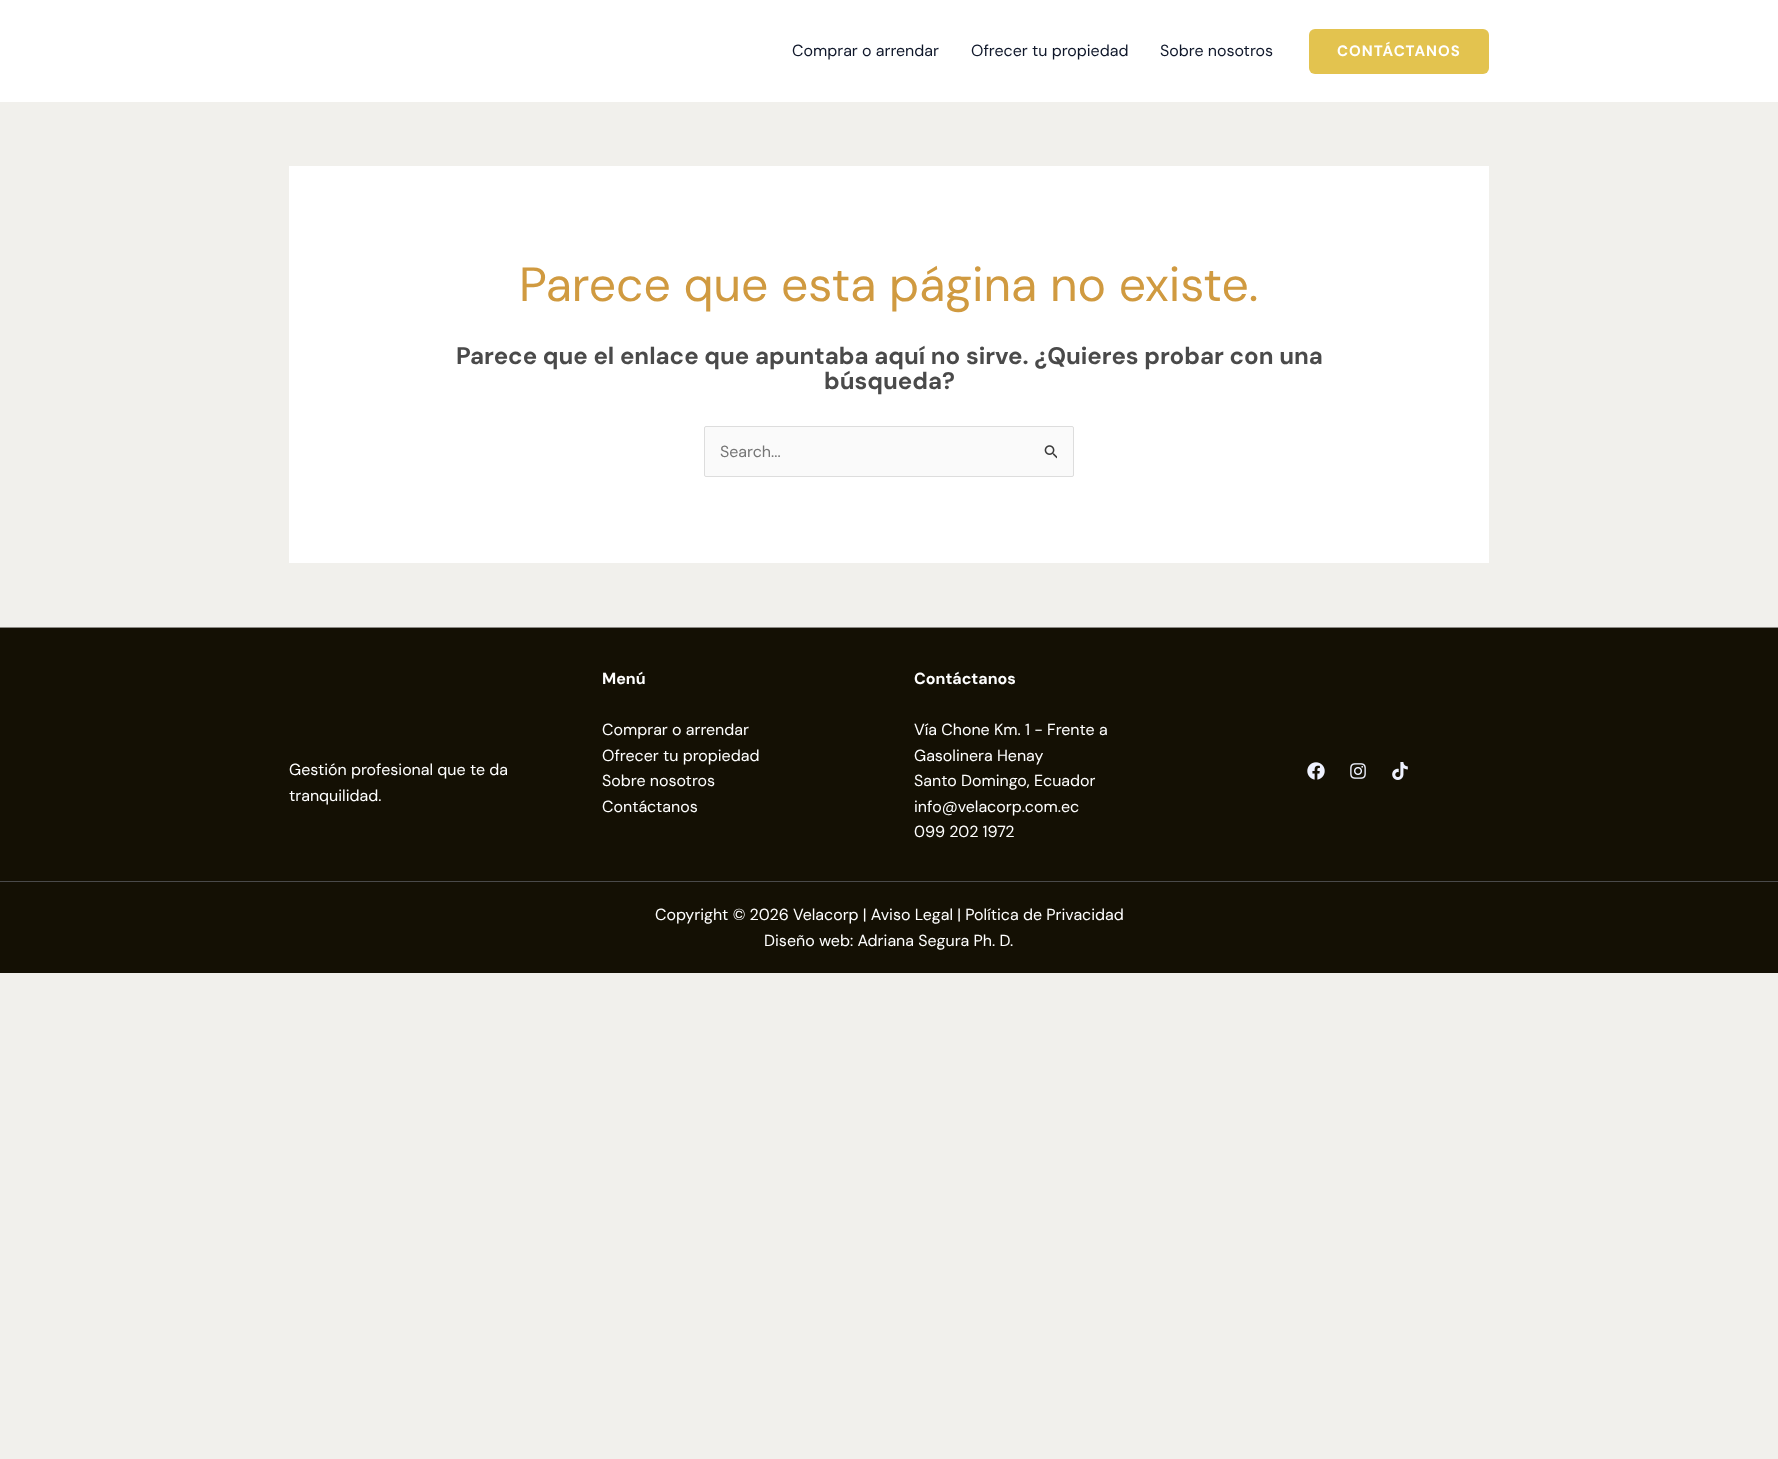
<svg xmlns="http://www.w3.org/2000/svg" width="1778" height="1459">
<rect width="100%" height="100%" fill="#f1f0ec"/>
<rect width="1778" height="102" fill="#fff"/>
<text x="792" y="56" style="font-family:DM Sans;font-size:16px;fill:#0f172a">Comprar o arrendar</text>
<text x="971" y="56" style="font-family:DM Sans;font-size:16px;fill:#0f172a">Ofrecer tu propiedad</text>
<text x="1160" y="56" style="font-family:DM Sans;font-size:16px;fill:#0f172a">Sobre nosotros</text>
<rect x="1309" y="29" width="180" height="45" rx="6" fill="#e3c34f"/>
<text x="1337" y="56" style="font-family:DM Sans;font-size:15px;font-weight:bold;letter-spacing:1px;fill:#fff">CONTÁCTANOS</text>
<rect x="289" y="166" width="1200" height="397" fill="#fff"/>
<text x="519" y="301" style="font-family:DM Sans;font-size:48px;fill:#d09a40">Parece que esta página no existe.</text>
<text x="456" y="364" style="font-family:DM Sans;font-size:24px;font-weight:bold;fill:#4a4a4a">Parece que el enlace que apuntaba aquí no sirve. ¿Quieres probar con una</text>
<text x="824" y="389" style="font-family:DM Sans;font-size:24px;font-weight:bold;fill:#4a4a4a">búsqueda?</text>
<rect x="704.5" y="426.5" width="369" height="50" rx="1.5" fill="#fafafa" stroke="#ddd"/>
<text x="720" y="457" style="font-family:DM Sans;font-size:16px;fill:#757575">Search...</text>
<image x="1044" y="445" width="13" height="14" href="media/1.png"/>
<rect y="628" width="1778" height="253" fill="#141004"/>
<rect y="627" width="1778" height="1" fill="#8c8a85"/>
<text x="289" y="775" style="font-family:DM Sans;font-size:16px;fill:#fff">Gestión profesional que te da</text>
<text x="289" y="801" style="font-family:DM Sans;font-size:16px;fill:#fff">tranquilidad.</text>
<text x="602" y="684" style="font-family:DM Sans;font-size:16px;font-weight:bold;fill:#fff">Menú</text>
<text x="602" y="735" style="font-family:DM Sans;font-size:16px;fill:#fff">Comprar o arrendar</text>
<text x="602" y="761" style="font-family:DM Sans;font-size:16px;fill:#fff">Ofrecer tu propiedad</text>
<text x="602" y="786" style="font-family:DM Sans;font-size:16px;fill:#fff">Sobre nosotros</text>
<text x="602" y="812" style="font-family:DM Sans;font-size:16px;fill:#fff">Contáctanos</text>
<text x="914" y="684" style="font-family:DM Sans;font-size:16px;font-weight:bold;fill:#fff">Contáctanos</text>
<text x="914" y="735" style="font-family:DM Sans;font-size:16px;fill:#fff">Vía Chone Km. 1 - Frente a</text>
<text x="914" y="761" style="font-family:DM Sans;font-size:16px;fill:#fff">Gasolinera Henay</text>
<text x="914" y="786" style="font-family:DM Sans;font-size:16px;fill:#fff">Santo Domingo, Ecuador</text>
<text x="914" y="812" style="font-family:DM Sans;font-size:16px;fill:#fff">info@velacorp.com.ec</text>
<text x="914" y="837" style="font-family:DM Sans;font-size:16px;fill:#fff">099 202 1972</text>
<image x="1307" y="762" width="18" height="18" href="media/2.png"/>
<image x="1350" y="763" width="16" height="16" href="media/3.png"/>
<image x="1392" y="762" width="16" height="18" href="media/4.png"/>
<rect y="882" width="1778" height="91" fill="#141004"/>
<rect y="881" width="1778" height="1" fill="#4a4a4a"/>
<text x="655" y="920" style="font-family:DM Sans;font-size:16px;fill:#fff">Copyright © 2026 Velacorp | Aviso Legal | Política de Privacidad</text>
<text x="764" y="946" style="font-family:DM Sans;font-size:16px;fill:#fff">Diseño web: Adriana Segura Ph. D.</text>
</svg>
